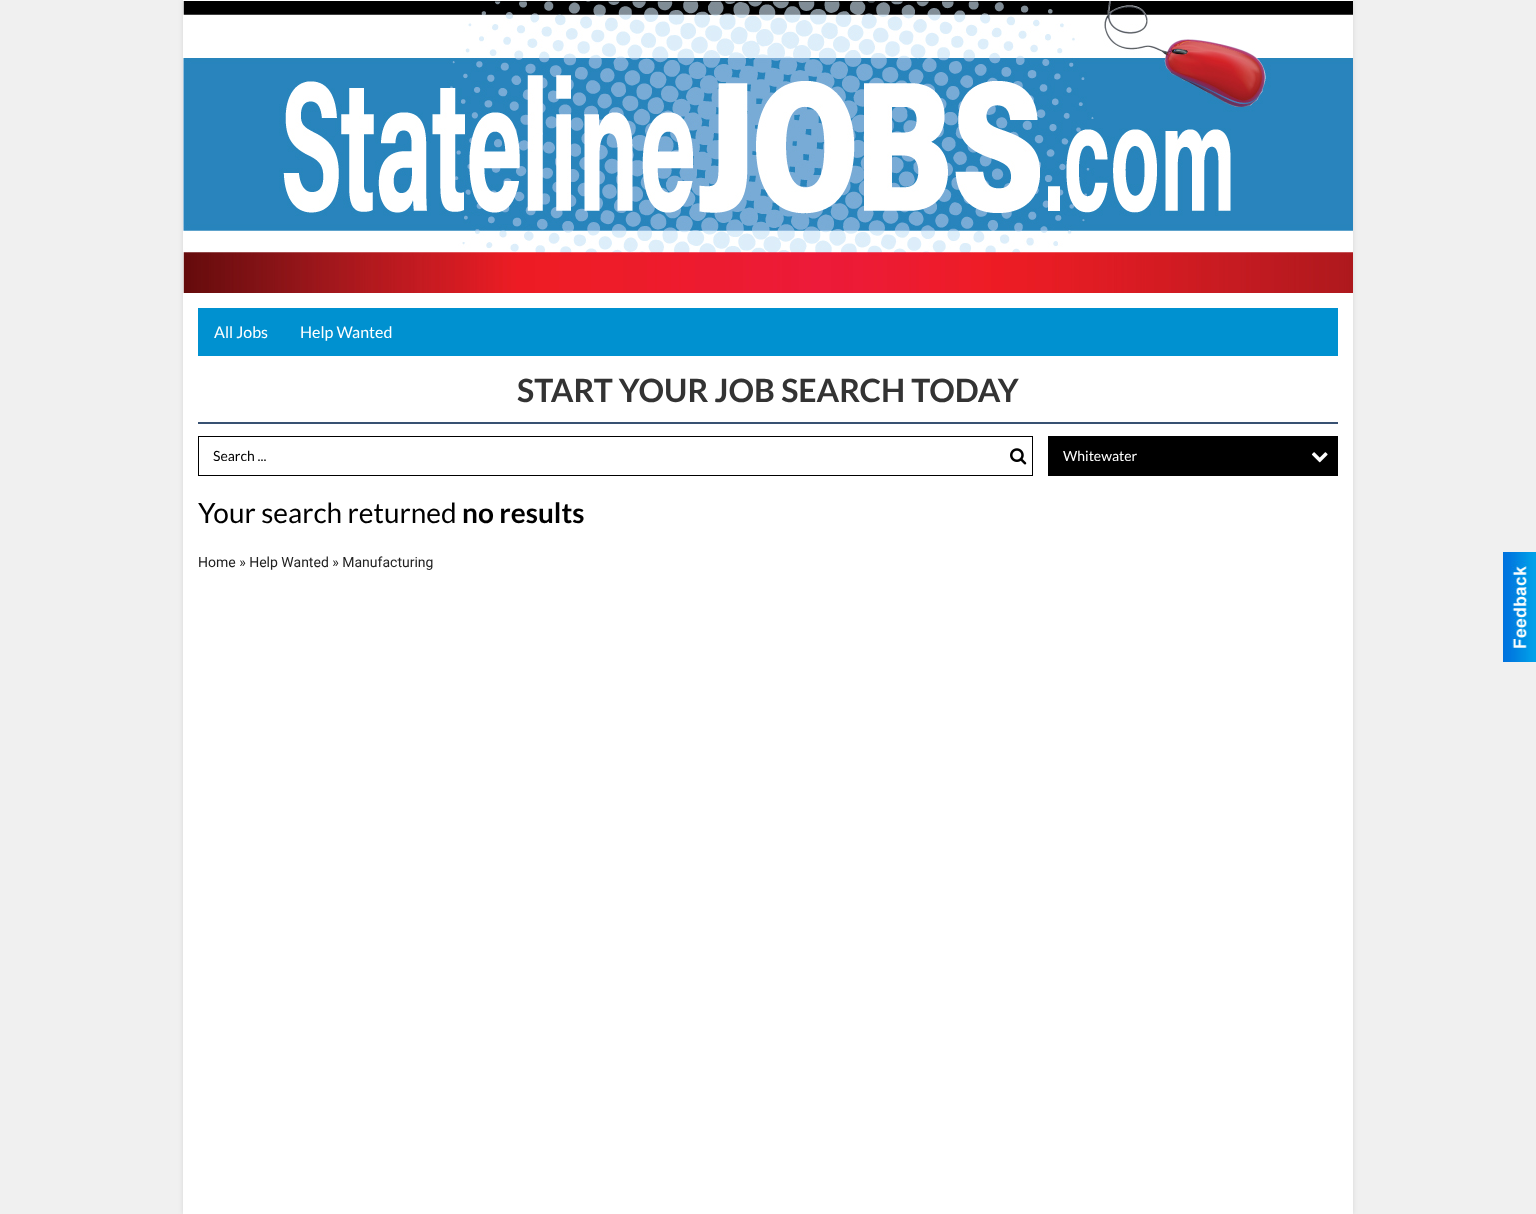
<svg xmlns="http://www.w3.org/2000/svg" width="1536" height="1214">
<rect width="100%" height="100%" fill="#f0f0f0"/>
<rect x="183" width="1170" height="1214" fill="#0000001a" filter="blur(2.5px)"/>
<rect x="183" y="293" width="1170" height="921" fill="#fff"/>
<image x="183" y="0" width="1170" height="293" href="media/1.png"/>
<rect x="198" y="308" width="1140" height="48" fill="#0091d0"/>
<text x="214" y="338" style="font-family:Lato;font-size:16px;fill:#fff">All Jobs</text>
<text x="300" y="338" style="font-family:Lato;font-size:16px;fill:#fff">Help Wanted</text>
<rect x="198" y="422" width="1140" height="2" fill="#385172"/>
<text x="517" y="402" style="font-family:Lato;font-size:32px;font-weight:bold;fill:#333">START YOUR JOB SEARCH TODAY</text>
<rect x="198.5" y="436.5" width="834" height="39" fill="none" stroke="#000"/>
<text x="213" y="461" style="font-family:Lato;font-size:14px;fill:#000">Search ...</text>
<image x="1010" y="448" width="17" height="17" href="media/2.png"/>
<rect x="1048.5" y="436.5" width="289" height="39" fill="none" stroke="#000"/>
<rect x="1049" y="437" width="288" height="38" fill="#000"/>
<text x="1063" y="461" style="font-family:Lato;font-size:14px;fill:#fff">Whitewater</text>
<image x="1311" y="452" width="17" height="11" href="media/3.png"/>
<text x="198" y="523" style="font-family:Lato;font-size:28px;fill:#000">Your search returned</text>
<text x="462" y="523" style="font-family:Lato;font-size:28px;font-weight:bold;fill:#000">no results</text>
<text x="198" y="567" style="font-family:Roboto;font-size:14px;fill:#222">Home » Help Wanted » Manufacturing</text>
<image x="1503" y="552" width="33" height="110" href="media/4.png"/>
</svg>
